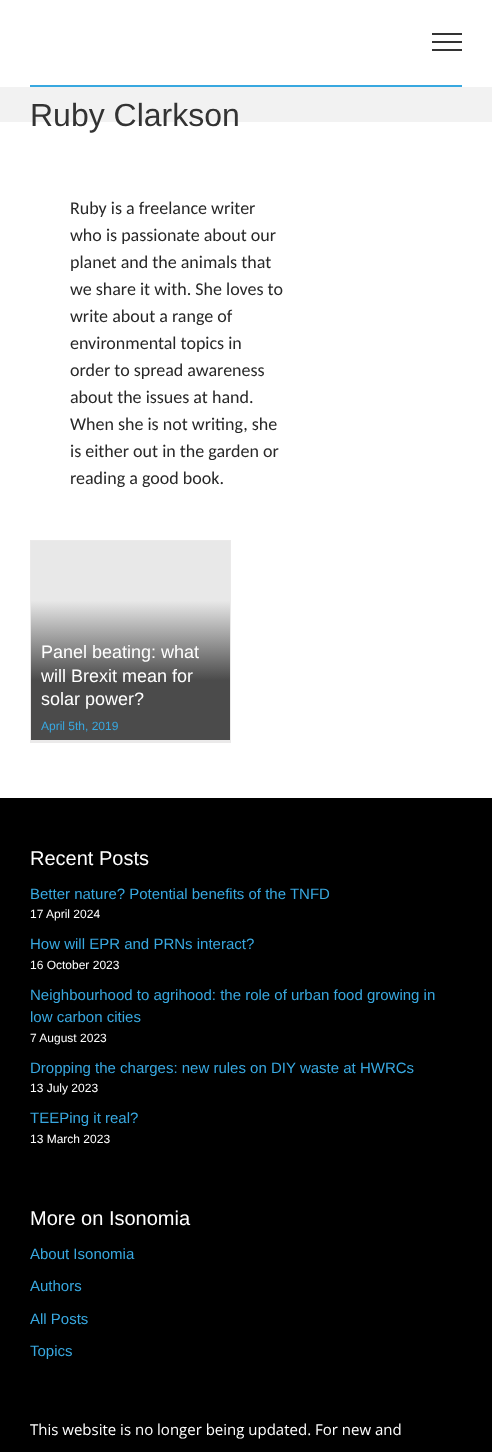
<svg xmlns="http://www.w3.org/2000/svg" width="492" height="1452">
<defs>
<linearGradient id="g1" gradientUnits="userSpaceOnUse" x1="131" y1="541" x2="131" y2="740"><stop offset="0.3" stop-color="#e8e8e8"/><stop offset="0.7" stop-color="#4b4b4b"/></linearGradient>
</defs>
<rect width="100%" height="100%" fill="#fff"/>
<rect x="30" y="85" width="432" height="2" fill="#38a8e0"/>
<rect x="432" y="33" width="30" height="2" fill="#333"/>
<rect x="432" y="41" width="30" height="2" fill="#333"/>
<rect x="432" y="49" width="30" height="2" fill="#333"/>
<rect y="87" width="492" height="35" fill="#f2f2f2"/>
<text x="30" y="126" style="font-family:Liberation Sans;font-size:32px;fill:#333">Ruby Clarkson</text>
<text x="70" y="214" style="font-family:Carlito;font-size:18px;fill:#282828">Ruby is a freelance writer</text>
<text x="70" y="241" style="font-family:Carlito;font-size:18px;fill:#282828">who is passionate about our</text>
<text x="70" y="268" style="font-family:Carlito;font-size:18px;fill:#282828">planet and the animals that</text>
<text x="70" y="295" style="font-family:Carlito;font-size:18px;fill:#282828">we share it with. She loves to</text>
<text x="70" y="322" style="font-family:Carlito;font-size:18px;fill:#282828">write about a range of</text>
<text x="70" y="349" style="font-family:Carlito;font-size:18px;fill:#282828">environmental topics in</text>
<text x="70" y="376" style="font-family:Carlito;font-size:18px;fill:#282828">order to spread awareness</text>
<text x="70" y="403" style="font-family:Carlito;font-size:18px;fill:#282828">about the issues at hand.</text>
<text x="70" y="430" style="font-family:Carlito;font-size:18px;fill:#282828">When she is not writing, she</text>
<text x="70" y="457" style="font-family:Carlito;font-size:18px;fill:#282828">is either out in the garden or</text>
<text x="70" y="484" style="font-family:Carlito;font-size:18px;fill:#282828">reading a good book.</text>
<rect x="30" y="540" width="201" height="1" fill="#ebeaea"/>
<rect x="230" y="540" width="1" height="203" fill="#ebeaea"/>
<rect x="30" y="740" width="201" height="3" fill="#ebeaea"/>
<rect x="30" y="540" width="1" height="203" fill="#ebeaea"/>
<rect x="31" y="541" width="199" height="199" fill="url(#g1)"/>
<text x="41" y="658" style="font-family:Liberation Sans;font-size:18px;fill:#fff">Panel beating: what</text>
<text x="41" y="682" style="font-family:Liberation Sans;font-size:18px;fill:#fff">will Brexit mean for</text>
<text x="41" y="705" style="font-family:Liberation Sans;font-size:18px;fill:#fff">solar power?</text>
<text x="41" y="730" style="font-family:Liberation Sans;font-size:12px;fill:#38a8e0">April 5th, 2019</text>
<rect y="798" width="492" height="654" fill="#000"/>
<text x="30" y="865" style="font-family:Liberation Sans;font-size:20px;fill:#fff">Recent Posts</text>
<text x="30" y="899" style="font-family:Liberation Sans;font-size:15px;fill:#38a8e0">Better nature? Potential benefits of the TNFD</text>
<text x="30" y="918" style="font-family:Liberation Sans;font-size:12px;fill:#fff">17 April 2024</text>
<text x="30" y="949" style="font-family:Liberation Sans;font-size:15px;fill:#38a8e0">How will EPR and PRNs interact?</text>
<text x="30" y="969" style="font-family:Liberation Sans;font-size:12px;fill:#fff">16 October 2023</text>
<text x="30" y="1000" style="font-family:Liberation Sans;font-size:15px;fill:#38a8e0">Neighbourhood to agrihood: the role of urban food growing in</text>
<text x="30" y="1022" style="font-family:Liberation Sans;font-size:15px;fill:#38a8e0">low carbon cities</text>
<text x="30" y="1042" style="font-family:Liberation Sans;font-size:12px;fill:#fff">7 August 2023</text>
<text x="30" y="1073" style="font-family:Liberation Sans;font-size:15px;fill:#38a8e0">Dropping the charges: new rules on DIY waste at HWRCs</text>
<text x="30" y="1092" style="font-family:Liberation Sans;font-size:12px;fill:#fff">13 July 2023</text>
<text x="30" y="1123" style="font-family:Liberation Sans;font-size:15px;fill:#38a8e0">TEEPing it real?</text>
<text x="30" y="1143" style="font-family:Liberation Sans;font-size:12px;fill:#fff">13 March 2023</text>
<text x="30" y="1225" style="font-family:Liberation Sans;font-size:20px;fill:#fff">More on Isonomia</text>
<text x="30" y="1259" style="font-family:Liberation Sans;font-size:15px;fill:#38a8e0">About Isonomia</text>
<text x="30" y="1291" style="font-family:Liberation Sans;font-size:15px;fill:#38a8e0">Authors</text>
<text x="30" y="1324" style="font-family:Liberation Sans;font-size:15px;fill:#38a8e0">All Posts</text>
<text x="30" y="1356" style="font-family:Liberation Sans;font-size:15px;fill:#38a8e0">Topics</text>
<text x="30" y="1435" style="font-family:Open Sans;font-size:15px;fill:#fff">This website is no longer being updated. For new and</text>
</svg>
